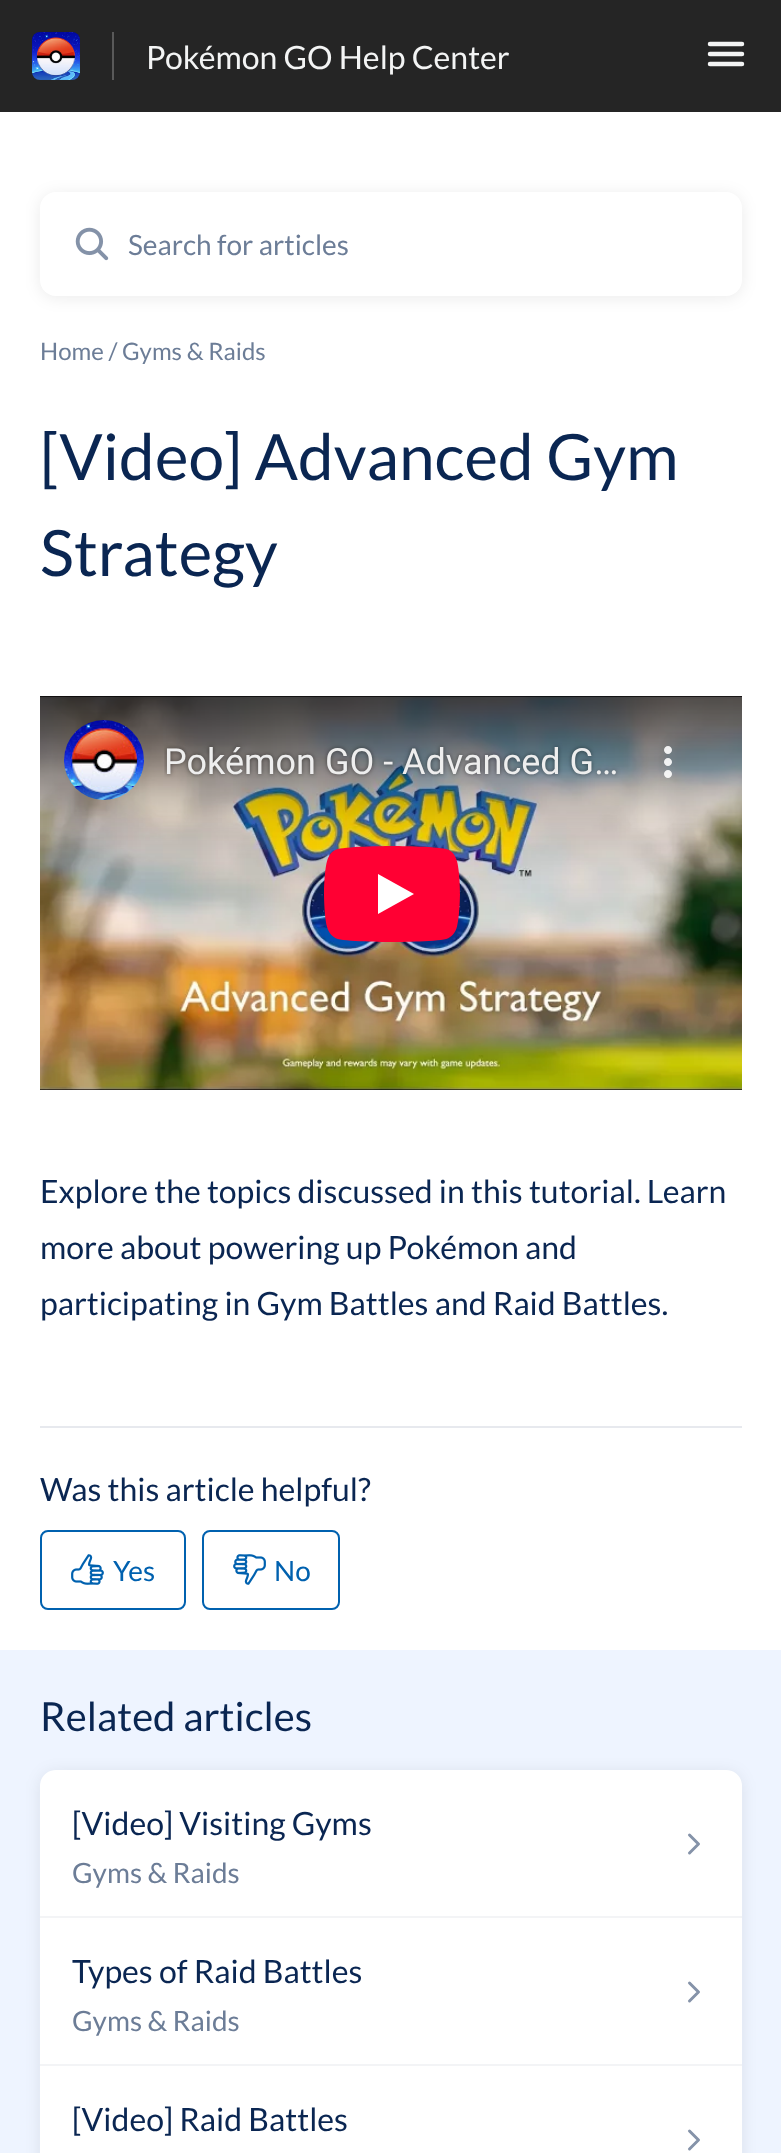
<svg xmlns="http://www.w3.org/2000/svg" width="781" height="2153">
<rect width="100%" height="100%" fill="#eef4ff"/>
<rect width="781" height="112" fill="#252525"/>
<rect x="112" y="32" width="2" height="48" fill="#595959"/>
<image x="32" y="32" width="48" height="48" href="media/1.png"/>
<text x="146" y="69" style="font-family:Lato;font-size:32px;fill:#f3f4f4">Pokémon GO Help Center</text>
<path d="M710 44h32m-32 10h32m-32 10h32" fill="none" stroke="#f3f4f4" stroke-width="4.5" stroke-linecap="round"/>
<rect y="112" width="781" height="1538" fill="#fff"/>
<rect x="40" y="194" width="702" height="104" rx="16" fill="#00000014" filter="blur(8px)"/>
<rect x="40" y="192" width="702" height="104" rx="16" fill="#fff"/>
<image x="75" y="227" width="34" height="34" href="media/2.png"/>
<text x="128" y="255" style="font-family:Lato;font-size:28px;fill:#6c7d97">Search for articles</text>
<text x="40" y="360" style="font-family:Lato;font-size:24px;fill:#6c7d97">Home / Gyms &amp; Raids</text>
<text x="40" y="480" style="font-family:Lato;font-size:64px;fill:#0a2652">[Video] Advanced Gym</text>
<text x="40" y="576" style="font-family:Lato;font-size:64px;fill:#0a2652">Strategy</text>
<rect x="40" y="1426" width="702" height="2" fill="#e7e9ee"/>
<image x="40" y="696" width="702" height="394" href="media/3.png"/>
<text x="40" y="1203" style="font-family:Lato;font-size:32px;fill:#0a2652">Explore the topics discussed in this tutorial. Learn</text>
<text x="40" y="1259" style="font-family:Lato;font-size:32px;fill:#0a2652">more about powering up Pokémon and</text>
<text x="40" y="1315" style="font-family:Lato;font-size:32px;fill:#0a2652">participating in Gym Battles and Raid Battles.</text>
<text x="40" y="1501" style="font-family:Lato;font-size:32px;fill:#0a2652">Was this article helpful?</text>
<rect x="41" y="1531" width="144" height="78" rx="7" fill="none" stroke="#0061af" stroke-width="2"/>
<image x="71" y="1554" width="33" height="31" href="media/4.png"/>
<text x="113" y="1581" style="font-family:Lato;font-size:28px;fill:#0061af">Yes</text>
<rect x="203" y="1531" width="136" height="78" rx="7" fill="none" stroke="#0061af" stroke-width="2"/>
<image x="233" y="1554" width="33" height="31" href="media/5.png"/>
<text x="274" y="1581" style="font-family:Lato;font-size:28px;fill:#0061af">No</text>
<text x="40" y="1731" style="font-family:Lato;font-size:40px;fill:#0a2652">Related articles</text>
<rect x="40" y="1772" width="702" height="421" rx="16" fill="#00000014" filter="blur(8px)"/>
<path d="M56 1770h670c9 0 16 7 16 16v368h-702v-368c0-9 7-16 16-16z" fill="#fff"/>
<rect x="40" y="1916" width="702" height="2" fill="#f3f4f6"/>
<text x="72" y="1835" style="font-family:Lato;font-size:32px;fill:#0a2652">[Video] Visiting Gyms</text>
<text x="72" y="1883" style="font-family:Lato;font-size:28px;fill:#6c7d97">Gyms &amp; Raids</text>
<path d="M689.5 1835l9 9l-9 9" fill="none" stroke="#8593a9" stroke-width="3" stroke-linecap="round" stroke-linejoin="round"/>
<rect x="40" y="2064" width="702" height="2" fill="#f3f4f6"/>
<text x="72" y="1983" style="font-family:Lato;font-size:32px;fill:#0a2652">Types of Raid Battles</text>
<text x="72" y="2031" style="font-family:Lato;font-size:28px;fill:#6c7d97">Gyms &amp; Raids</text>
<path d="M689.5 1983l9 9l-9 9" fill="none" stroke="#8593a9" stroke-width="3" stroke-linecap="round" stroke-linejoin="round"/>
<text x="72" y="2131" style="font-family:Lato;font-size:32px;fill:#0a2652">[Video] Raid Battles</text>
<path d="M689.5 2131l9 9l-9 9" fill="none" stroke="#8593a9" stroke-width="3" stroke-linecap="round" stroke-linejoin="round"/>
</svg>
